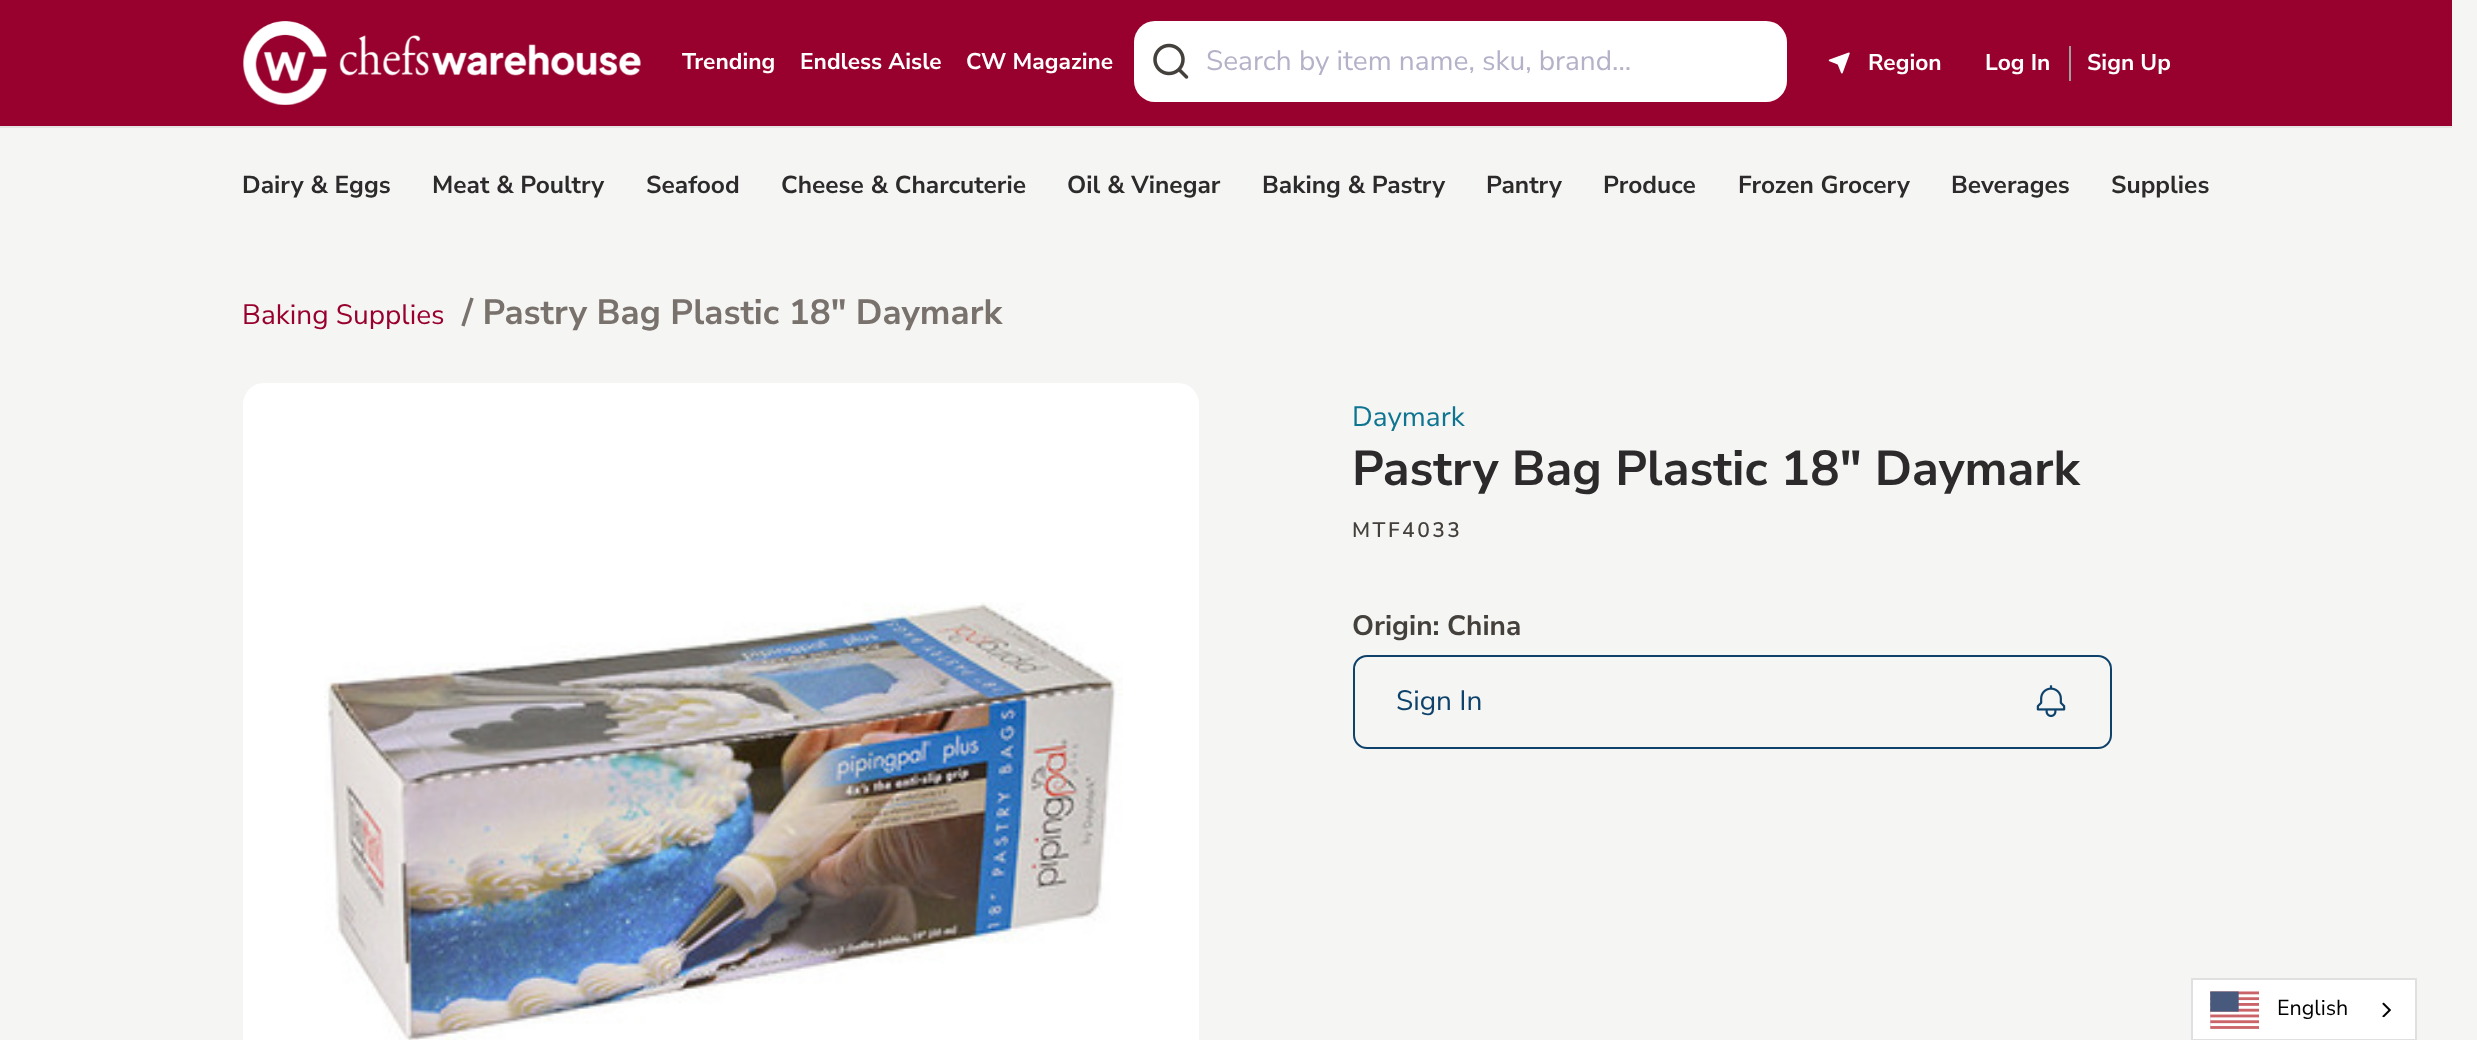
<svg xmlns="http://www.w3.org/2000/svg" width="2477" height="1040">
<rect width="100%" height="100%" fill="#f5f5f4"/>
<rect width="2452" height="126" fill="#98002e"/>
<rect y="126" width="2452" height="2" fill="#e7e5e4"/>
<image x="243" y="21" width="398" height="84" href="media/1.png"/>
<text x="682" y="69" style="font-family:Nunito Sans;font-size:22.75px;font-weight:bold;fill:#fff">Trending</text>
<text x="800" y="69" style="font-family:Nunito Sans;font-size:22.75px;font-weight:bold;fill:#fff">Endless Aisle</text>
<text x="966" y="69" style="font-family:Nunito Sans;font-size:22.75px;font-weight:bold;fill:#fff">CW Magazine</text>
<rect x="1134" y="21" width="653" height="81" rx="21" fill="#fff"/>
<image x="1153" y="43" width="36" height="36" href="media/2.png"/>
<text x="1206" y="70" style="font-family:Nunito Sans;font-size:28px;fill:#b3b2c8">Search by item name, sku, brand...</text>
<image x="1828" y="52" width="22" height="22" href="media/3.png"/>
<text x="1868" y="70" style="font-family:Nunito Sans;font-size:22.75px;font-weight:bold;fill:#fff">Region</text>
<rect x="2069" y="46" width="2" height="35" fill="#9f9f9f"/>
<text x="1985" y="70" style="font-family:Nunito Sans;font-size:22.75px;font-weight:bold;fill:#fff">Log In</text>
<text x="2087" y="70" style="font-family:Nunito Sans;font-size:22.75px;font-weight:bold;fill:#fff">Sign Up</text>
<text x="242" y="193" style="font-family:Nunito Sans;font-size:24.5px;font-weight:bold;fill:#2c2a2a">Dairy &amp; Eggs</text>
<text x="432" y="193" style="font-family:Nunito Sans;font-size:24.5px;font-weight:bold;fill:#2c2a2a">Meat &amp; Poultry</text>
<text x="646" y="193" style="font-family:Nunito Sans;font-size:24.5px;font-weight:bold;fill:#2c2a2a">Seafood</text>
<text x="781" y="193" style="font-family:Nunito Sans;font-size:24.5px;font-weight:bold;fill:#2c2a2a">Cheese &amp; Charcuterie</text>
<text x="1067" y="193" style="font-family:Nunito Sans;font-size:24.5px;font-weight:bold;fill:#2c2a2a">Oil &amp; Vinegar</text>
<text x="1262" y="193" style="font-family:Nunito Sans;font-size:24.5px;font-weight:bold;fill:#2c2a2a">Baking &amp; Pastry</text>
<text x="1486" y="193" style="font-family:Nunito Sans;font-size:24.5px;font-weight:bold;fill:#2c2a2a">Pantry</text>
<text x="1603" y="193" style="font-family:Nunito Sans;font-size:24.5px;font-weight:bold;fill:#2c2a2a">Produce</text>
<text x="1738" y="193" style="font-family:Nunito Sans;font-size:24.5px;font-weight:bold;fill:#2c2a2a">Frozen Grocery</text>
<text x="1951" y="193" style="font-family:Nunito Sans;font-size:24.5px;font-weight:bold;fill:#2c2a2a">Beverages</text>
<text x="2111" y="193" style="font-family:Nunito Sans;font-size:24.5px;font-weight:bold;fill:#2c2a2a">Supplies</text>
<text x="242" y="324" style="font-family:Nunito Sans;font-size:28px;fill:#98002e">Baking Supplies</text>
<text x="462" y="324" style="font-family:Nunito Sans;font-size:35px;font-weight:bold;fill:#78716c">/ Pastry Bag Plastic 18" Daymark</text>
<rect x="243" y="383" width="956" height="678" rx="21" fill="#fff"/>
<image x="324" y="602" width="799" height="438" href="media/4.png"/>
<text x="1352" y="426" style="font-family:Nunito Sans;font-size:28px;fill:#0e7490">Daymark</text>
<text x="1352" y="485" style="font-family:Nunito Sans;font-size:49px;font-weight:bold;fill:#2c2a2a">Pastry Bag Plastic 18" Daymark</text>
<text x="1352" y="537" style="font-family:Nunito Sans;font-size:21px;font-weight:600;letter-spacing:2.5px;fill:#44403c">MTF4033</text>
<text x="1352" y="635" style="font-family:Nunito Sans;font-size:28px;font-weight:bold;fill:#44403c">Origin: China</text>
<rect x="1354" y="656" width="757" height="92" rx="13" fill="none" stroke="#0e426b" stroke-width="2"/>
<text x="1396" y="710" style="font-family:Nunito Sans;font-size:28px;fill:#0e426b">Sign In</text>
<image x="2036" y="685" width="30" height="32" href="media/5.png"/>
<rect x="2192" y="979" width="224" height="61" fill="#fff" stroke="#e0e0e0" stroke-width="2"/>
<image x="2210" y="991" width="49" height="38" href="media/6.png"/>
<text x="2277" y="1015" style="font-family:Nunito Sans;font-size:21.5px;fill:#000">English</text>
<image x="2382" y="1002" width="9" height="16" href="media/7.png"/>
</svg>
